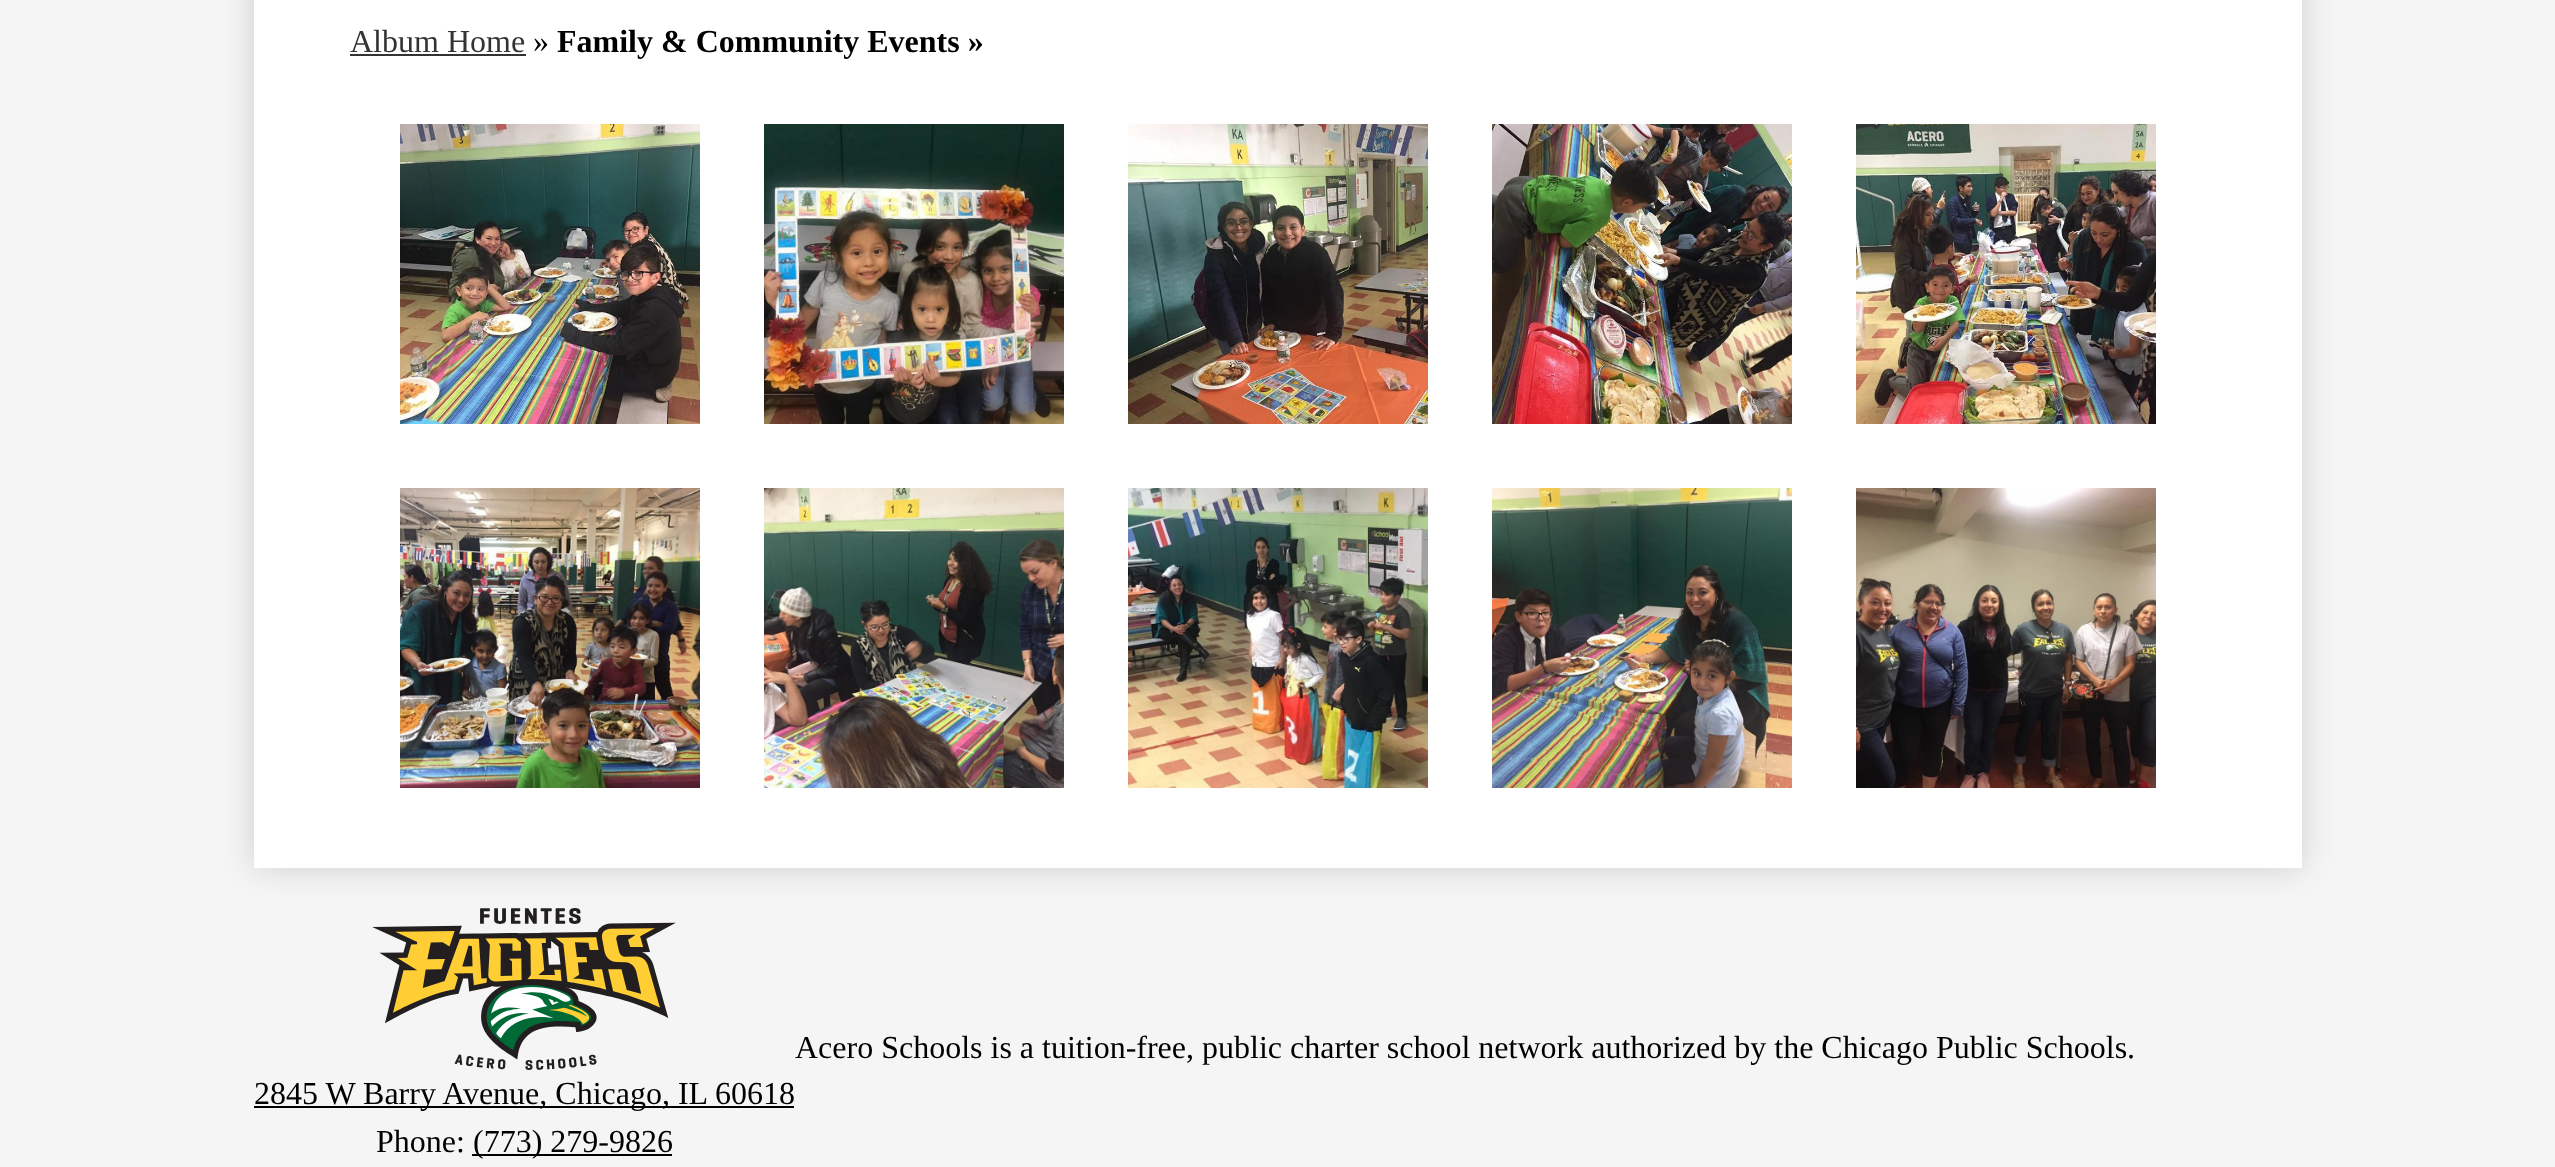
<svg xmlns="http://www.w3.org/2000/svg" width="2555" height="1167">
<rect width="100%" height="100%" fill="#f5f5f5"/>
<image x="372" y="908" width="304" height="162" href="media/11.png"/>
<rect x="254" y="-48" width="2048" height="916" fill="#00000026" filter="blur(16px)"/>
<rect x="254" width="2048" height="868" fill="#fff"/>
<text x="350" y="52" style="font-family:Liberation Serif;font-size:32px;fill:#333">Album Home</text>
<rect x="350" y="54" width="176" height="2" fill="#333"/>
<text x="533" y="52" style="font-family:Liberation Serif;font-size:32px;fill:#000">»</text>
<text x="557" y="52" style="font-family:Liberation Serif;font-size:32px;font-weight:bold;fill:#000">Family &amp; Community Events »</text>
<image x="400" y="124" width="300" height="300" href="media/1.png"/>
<image x="764" y="124" width="300" height="300" href="media/2.png"/>
<image x="1128" y="124" width="300" height="300" href="media/3.png"/>
<image x="1492" y="124" width="300" height="300" href="media/4.png"/>
<image x="1856" y="124" width="300" height="300" href="media/5.png"/>
<image x="400" y="488" width="300" height="300" href="media/6.png"/>
<image x="764" y="488" width="300" height="300" href="media/7.png"/>
<image x="1128" y="488" width="300" height="300" href="media/8.png"/>
<image x="1492" y="488" width="300" height="300" href="media/9.png"/>
<image x="1856" y="488" width="300" height="300" href="media/10.png"/>
<text x="795" y="1058" style="font-family:Liberation Serif;font-size:32px;fill:#000">Acero Schools is a tuition-free, public charter school network authorized by the Chicago Public Schools.</text>
<rect x="254" y="1106" width="540" height="2" fill="#000"/>
<text x="254" y="1104" style="font-family:Liberation Serif;font-size:32px;fill:#000">2845 W Barry Avenue, Chicago, IL 60618</text>
<text x="376" y="1152" style="font-family:Liberation Serif;font-size:32px;fill:#000">Phone:</text>
<rect x="472" y="1154" width="200" height="2" fill="#000"/>
<text x="473" y="1152" style="font-family:Liberation Serif;font-size:32px;fill:#000">(773) 279-9826</text>
</svg>
